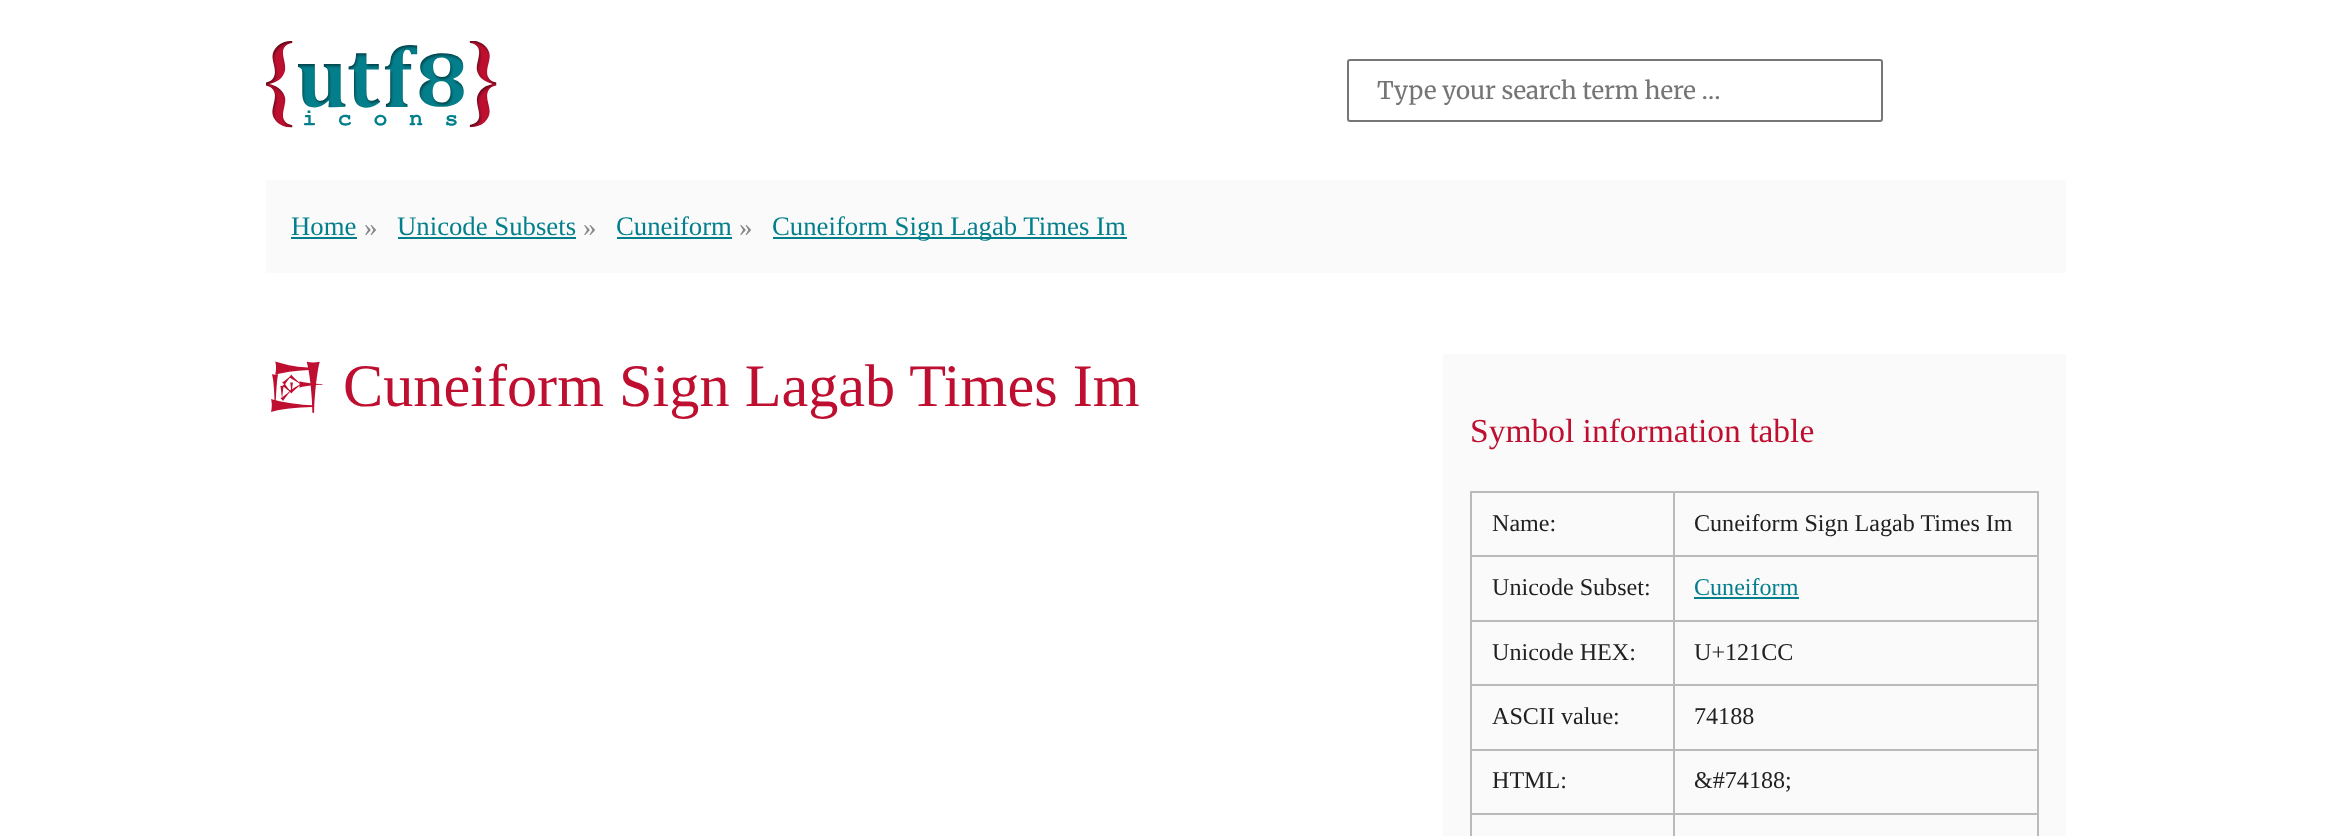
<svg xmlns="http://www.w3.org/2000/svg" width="2329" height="836">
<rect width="100%" height="100%" fill="#fff"/>
<image x="266" y="41" width="231" height="87" href="media/1.png"/>
<rect x="1348" y="60" width="534" height="61" rx="2" fill="none" stroke="#767676" stroke-width="2"/>
<text x="1377" y="99" style="font-family:Merriweather;font-size:24.1px;fill:#757575">Type your search term here …</text>
<rect x="266" y="180" width="1800" height="93" fill="#fafafa"/>
<text x="291" y="235" style="font-family:Liberation Serif;font-size:26.75px;fill:#037f8c">Home</text>
<rect x="291" y="237" width="66" height="2" fill="#037f8c"/>
<text x="364" y="236" style="font-family:Liberation Serif;font-size:26.75px;fill:#878787">»</text>
<text x="397" y="235" style="font-family:Liberation Serif;font-size:26.75px;fill:#037f8c">Unicode Subsets</text>
<rect x="398" y="237" width="178" height="2" fill="#037f8c"/>
<text x="583" y="236" style="font-family:Liberation Serif;font-size:26.75px;fill:#878787">»</text>
<text x="616" y="235" style="font-family:Liberation Serif;font-size:26.75px;fill:#037f8c">Cuneiform</text>
<rect x="617" y="237" width="115" height="2" fill="#037f8c"/>
<text x="739" y="236" style="font-family:Liberation Serif;font-size:26.75px;fill:#878787">»</text>
<rect x="773" y="237" width="354" height="2" fill="#037f8c"/>
<text x="772" y="235" style="font-family:Liberation Serif;font-size:26.75px;fill:#037f8c">Cuneiform Sign Lagab Times Im</text>
<text x="265" y="406" style="font-family:Noto Sans Cuneiform;font-size:60.25px;fill:#bf0f30">𒇌</text>
<text x="343" y="406" style="font-family:Liberation Serif;font-size:60.25px;fill:#bf0f30">Cuneiform Sign Lagab Times Im</text>
<rect x="1443" y="354" width="623" height="482" fill="#fafafa"/>
<text x="1470" y="442" style="font-family:Liberation Serif;font-size:33.5px;fill:#bf0f30">Symbol information table</text>
<rect x="1470" y="491" width="569" height="2" fill="#bababa"/>
<rect x="2037" y="491" width="2" height="345" fill="#bababa"/>
<rect x="1470" y="491" width="2" height="345" fill="#bababa"/>
<text x="1492" y="531" style="font-family:Liberation Serif;font-size:24.1px;fill:#212121">Name:</text>
<rect x="1673" y="555" width="366" height="2" fill="#bababa"/>
<rect x="1673" y="620" width="366" height="2" fill="#bababa"/>
<rect x="1673" y="684" width="366" height="2" fill="#bababa"/>
<rect x="1673" y="749" width="366" height="2" fill="#bababa"/>
<rect x="1673" y="813" width="366" height="2" fill="#bababa"/>
<rect x="1673" y="813" width="2" height="23" fill="#bababa"/>
<rect x="1470" y="813" width="204" height="2" fill="#bababa"/>
<rect x="1673" y="749" width="2" height="66" fill="#bababa"/>
<rect x="1470" y="749" width="204" height="2" fill="#bababa"/>
<rect x="1673" y="684" width="2" height="66" fill="#bababa"/>
<rect x="1470" y="684" width="204" height="2" fill="#bababa"/>
<rect x="1673" y="620" width="2" height="66" fill="#bababa"/>
<rect x="1470" y="620" width="204" height="2" fill="#bababa"/>
<rect x="1673" y="555" width="2" height="66" fill="#bababa"/>
<rect x="1470" y="555" width="204" height="2" fill="#bababa"/>
<rect x="1673" y="491" width="2" height="66" fill="#bababa"/>
<text x="1694" y="531" style="font-family:Liberation Serif;font-size:24.1px;fill:#212121">Cuneiform Sign Lagab Times Im</text>
<text x="1492" y="595" style="font-family:Liberation Serif;font-size:24.1px;fill:#212121">Unicode Subset:</text>
<text x="1694" y="595" style="font-family:Liberation Serif;font-size:24.1px;fill:#037f8c">Cuneiform</text>
<rect x="1694" y="597" width="105" height="2" fill="#037f8c"/>
<text x="1492" y="660" style="font-family:Liberation Serif;font-size:24.1px;fill:#212121">Unicode HEX:</text>
<text x="1694" y="660" style="font-family:Liberation Serif;font-size:24.1px;fill:#212121">U+121CC</text>
<text x="1492" y="724" style="font-family:Liberation Serif;font-size:24.1px;fill:#212121">ASCII value:</text>
<text x="1694" y="724" style="font-family:Liberation Serif;font-size:24.1px;fill:#212121">74188</text>
<text x="1492" y="788" style="font-family:Liberation Serif;font-size:24.1px;fill:#212121">HTML:</text>
<text x="1694" y="788" style="font-family:Liberation Serif;font-size:24.1px;fill:#212121">&amp;#74188;</text>
</svg>
